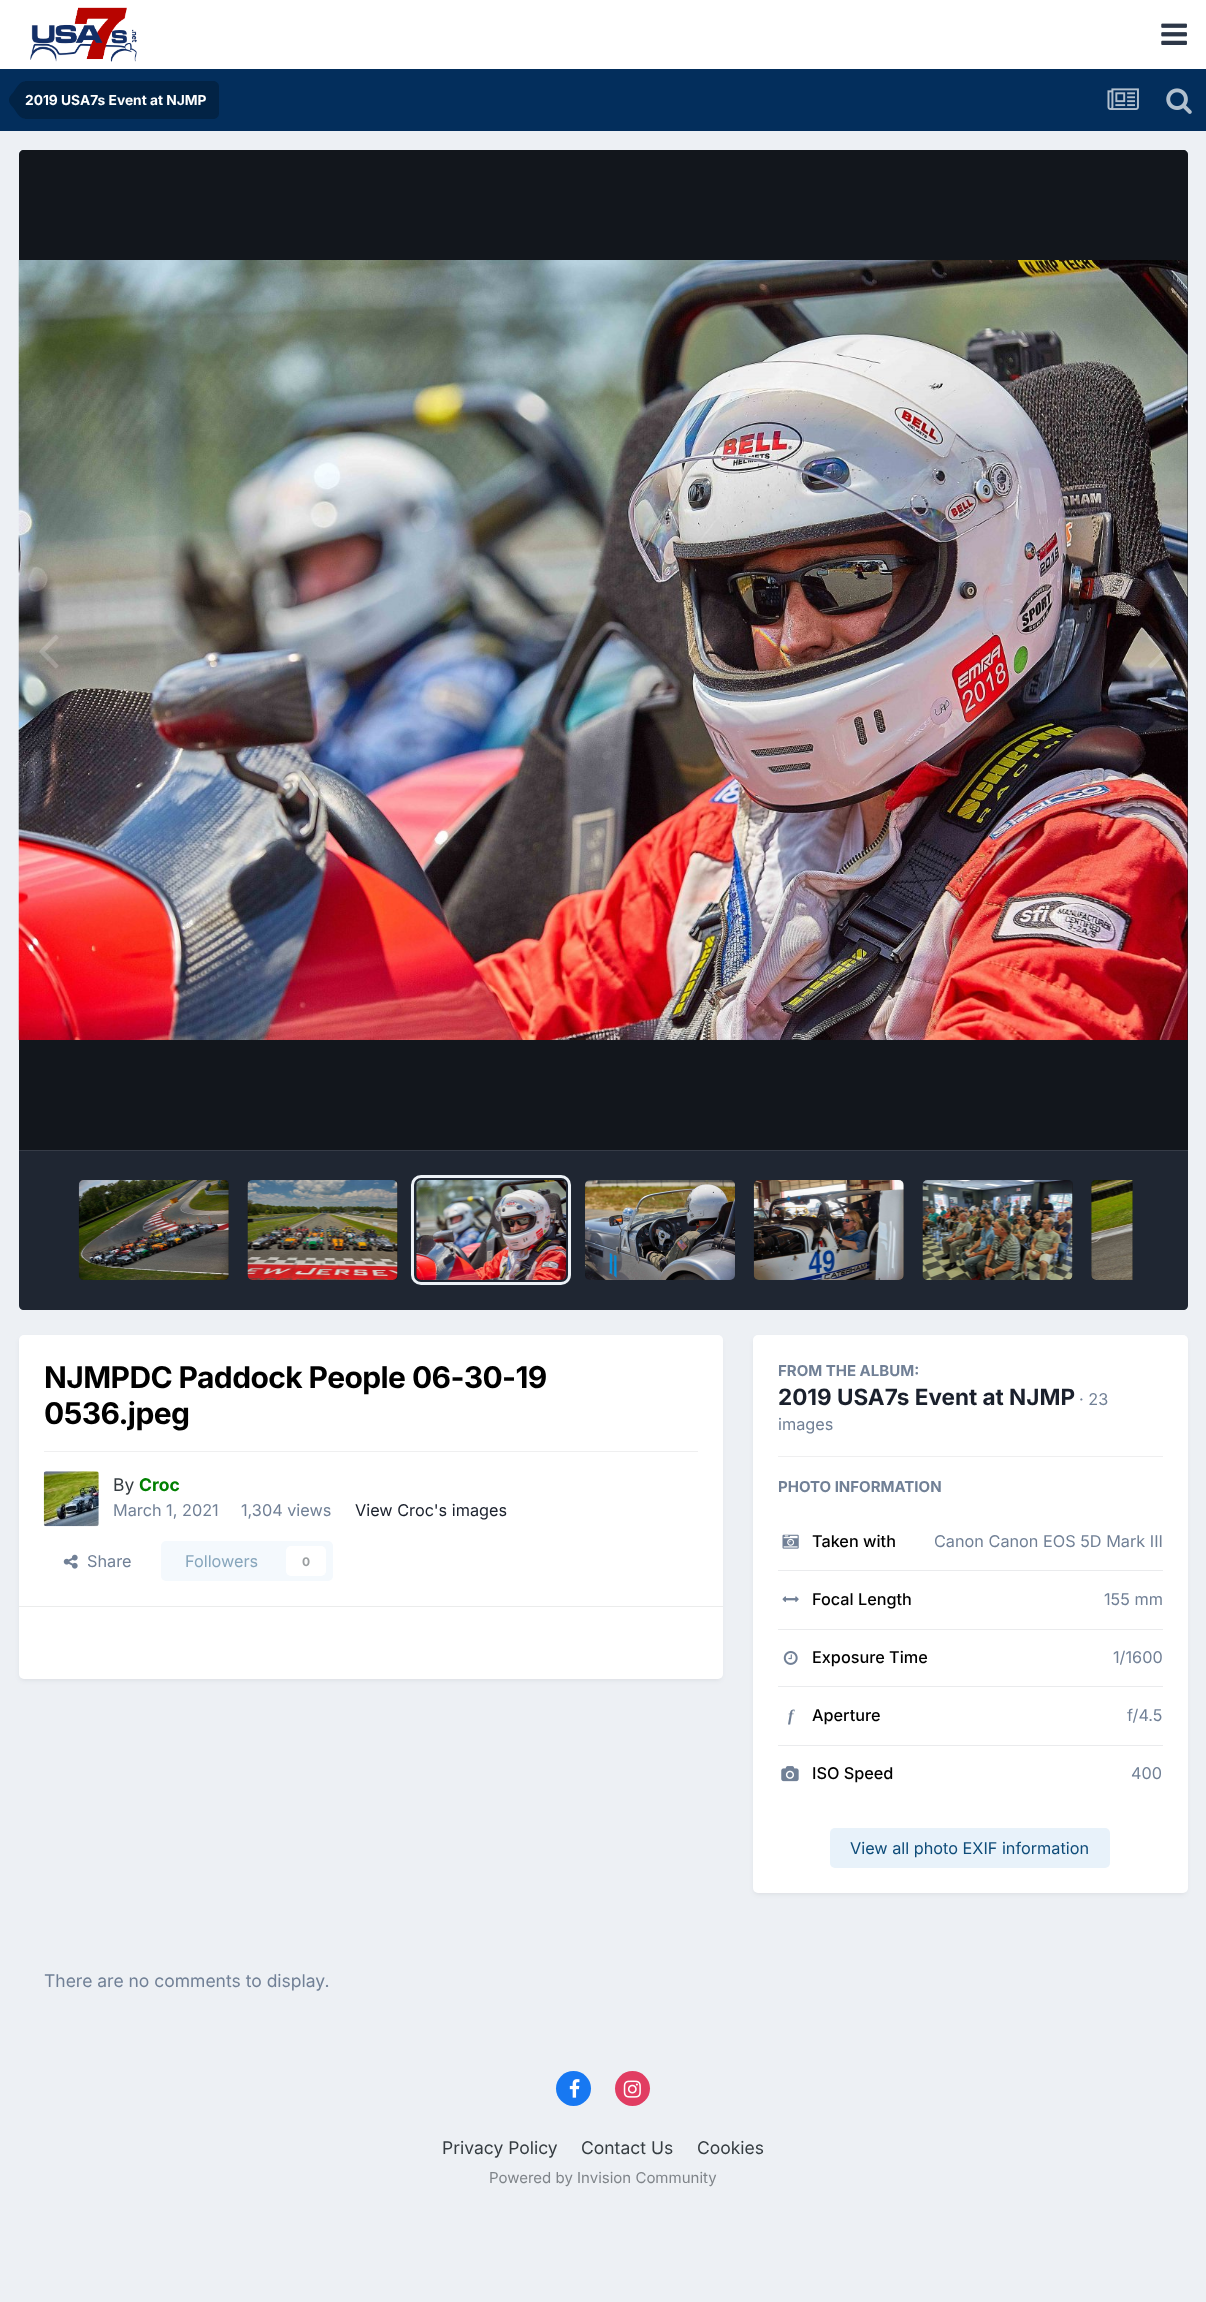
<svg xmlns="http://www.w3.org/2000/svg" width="1206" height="2302">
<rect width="100%" height="100%" fill="#edf0f4"/>
<rect width="1206" height="69" fill="#fff"/>
<image x="30" y="7" width="107" height="55" href="media/1.png"/>
<image x="1161" y="23" width="26" height="22" href="media/2.png"/>
<rect y="69" width="1206" height="62" fill="#032e5c"/>
<path d="M25 81h188c3.5 0 6 2.5 6 6v26c0 3.5-2.5 6-6 6h-188z" fill="#022345"/>
<path d="M25 100v18.5c-5.5 0-8.5-6.5-11-10c-2-2.5-5-5-5-8.5zm0 0h-16c0-3.5 3-6 5-8.5c2.5-3.5 5.5-10 11-10z" fill="#022345"/>
<text x="25" y="105" style="font-family:Inter;font-size:13.75px;font-weight:bold;fill:#fff">2019 USA7s Event at NJMP</text>
<image x="1107" y="88" width="32" height="22" href="media/3.png"/>
<image x="1166" y="88" width="26" height="26" href="media/4.png"/>
<path d="M24 150h1159c3 0 5 2 5 5v995h-1169v-995c0-3 2-5 5-5z" fill="#2d3748"/>
<path d="M24 150h1159c3 0 5 2 5 5v995h-1169v-995c0-3 2-5 5-5z" fill="#00000099"/>
<image x="18" y="260" width="1170" height="780" href="media/5.png"/>
<image x="39" y="635" width="20" height="34" href="media/6.png"/>
<image x="1148" y="635" width="20" height="34" href="media/7.png"/>
<path d="M19 1150h1169v155c0 3-2 5-5 5h-1159c-3 0-5-2-5-5z" fill="#2d3748"/>
<path d="M19 1150h1169v155c0 3-2 5-5 5h-1159c-3 0-5-2-5-5z" fill="#0000004d"/>
<rect x="19" y="1150" width="1169" height="1" fill="#363c47"/>
<rect x="79" y="1180" width="150" height="100" rx="5" fill="#141414"/>
<rect x="79" y="1180" width="150" height="100" rx="5" fill="#2d37484d"/>
<image x="78" y="1180" width="151" height="100" href="media/8.png"/>
<rect x="248" y="1180" width="150" height="100" rx="5" fill="#141414"/>
<rect x="248" y="1180" width="150" height="100" rx="5" fill="#2d37484d"/>
<image x="247" y="1180" width="151" height="100" href="media/9.png"/>
<rect x="416" y="1180" width="150" height="100" rx="5" fill="#141414"/>
<rect x="416" y="1180" width="150" height="100" rx="5" fill="#2d37484d"/>
<rect x="412.5" y="1176.5" width="157" height="107" rx="8.5" fill="none" stroke="#edf2f7" stroke-width="3"/>
<image x="416" y="1180" width="151" height="100" href="media/10.png"/>
<image x="585" y="1180" width="150" height="100" href="media/11.png"/>
<rect x="754" y="1180" width="150" height="100" rx="5" fill="#141414"/>
<rect x="754" y="1180" width="150" height="100" rx="5" fill="#2d37484d"/>
<image x="753" y="1180" width="151" height="100" href="media/12.png"/>
<rect x="923" y="1180" width="150" height="100" rx="5" fill="#141414"/>
<rect x="923" y="1180" width="150" height="100" rx="5" fill="#2d37484d"/>
<image x="922" y="1180" width="151" height="100" href="media/13.png"/>
<path d="M1096 1180h37v100h-37c-3 0-5-2-5-5v-90c0-3 2-5 5-5z" fill="#141414"/>
<path d="M1096 1180h37v100h-37c-3 0-5-2-5-5v-90c0-3 2-5 5-5z" fill="#2d37484d"/>
<image x="1091" y="1180" width="42" height="100" href="media/14.png"/>
<rect x="20" y="1339" width="701" height="341" rx="4" fill="#2d37481a" filter="blur(2.5px)"/>
<rect x="19" y="1335" width="704" height="344" rx="5" fill="#fff"/>
<text x="44" y="1388" style="font-family:Inter;font-size:30px;font-weight:bold;letter-spacing:-0.6px;fill:#000">NJMPDC Paddock People 06-30-19</text>
<text x="44" y="1424" style="font-family:Inter;font-size:30px;font-weight:bold;letter-spacing:-0.6px;fill:#000">0536.jpeg</text>
<rect x="44" y="1451" width="654" height="1" fill="#efeff0"/>
<image x="43" y="1471" width="56" height="56" href="media/15.png"/>
<text x="113" y="1491" style="font-family:Inter;font-size:17.5px;fill:#353c41">By</text>
<text x="139" y="1491" style="font-family:Inter;font-size:17.5px;font-weight:bold;fill:#008000">Croc</text>
<text x="113" y="1516" style="font-family:Inter;font-size:16.25px;fill:#718096">March 1, 2021</text>
<text x="241" y="1516" style="font-family:Inter;font-size:16.25px;fill:#718096">1,304 views</text>
<text x="355" y="1516" style="font-family:Inter;font-size:16.25px;fill:#1a202c">View Croc's images</text>
<image x="63" y="1554" width="15" height="15" href="media/16.png"/>
<text x="87" y="1567" style="font-family:Inter;font-size:16.25px;fill:#718096">Share</text>
<rect x="161" y="1541" width="172" height="40" rx="5" fill="#f4f9fd"/>
<text x="185" y="1567" style="font-family:Inter;font-size:16.25px;fill:#87a6bc">Followers</text>
<rect x="286" y="1546" width="40" height="30" rx="5" fill="#fff"/>
<text x="302" y="1566" style="font-family:Inter;font-size:12px;font-weight:bold;fill:#9a9ea0">0</text>
<rect x="19" y="1606" width="704" height="1" fill="#ebecec"/>
<rect x="754" y="1339" width="432" height="555" rx="4" fill="#2d37481a" filter="blur(2.5px)"/>
<rect x="753" y="1335" width="435" height="558" rx="5" fill="#fff"/>
<text x="778" y="1376" style="font-family:Inter;font-size:15px;font-weight:bold;fill:#718096">FROM THE ALBUM:</text>
<text x="778" y="1405" style="font-family:Inter;font-size:22.5px;font-weight:bold;fill:#1a202c">2019 USA7s Event at NJMP</text>
<text x="1079" y="1405" style="font-family:Inter;font-size:16.25px;fill:#718096">· 23</text>
<text x="778" y="1430" style="font-family:Inter;font-size:16.25px;fill:#718096">images</text>
<rect x="778" y="1456" width="385" height="1" fill="#efeff0"/>
<text x="778" y="1492" style="font-family:Inter;font-size:15px;font-weight:bold;fill:#718096">PHOTO INFORMATION</text>
<rect x="778" y="1570" width="385" height="1" fill="#eaebed"/>
<image x="782" y="1534" width="17" height="15" href="media/17.png"/>
<text x="812" y="1547" style="font-family:Inter;font-size:16.25px;font-weight:500;fill:#000">Taken with</text>
<text x="934" y="1547" style="font-family:Inter;font-size:16.25px;fill:#718096">Canon Canon EOS 5D Mark III</text>
<rect x="778" y="1629" width="385" height="1" fill="#eaebed"/>
<image x="782" y="1596" width="17" height="6" href="media/18.png"/>
<text x="812" y="1605" style="font-family:Inter;font-size:16.25px;font-weight:500;fill:#000">Focal Length</text>
<text x="1104" y="1605" style="font-family:Inter;font-size:16.25px;fill:#718096">155 mm</text>
<rect x="778" y="1686" width="385" height="1" fill="#eaebed"/>
<image x="783" y="1651" width="15" height="14" href="media/19.png"/>
<text x="812" y="1663" style="font-family:Inter;font-size:16.25px;font-weight:500;fill:#000">Exposure Time</text>
<text x="1113" y="1663" style="font-family:Inter;font-size:16.25px;fill:#718096">1/1600</text>
<rect x="778" y="1745" width="385" height="1" fill="#eaebed"/>
<text x="788" y="1721" style="font-family:Liberation Serif;font-size:16.25px;font-weight:bold;font-style:italic;fill:#718096">f</text>
<text x="812" y="1721" style="font-family:Inter;font-size:16.25px;font-weight:500;fill:#000">Aperture</text>
<text x="1127" y="1721" style="font-family:Inter;font-size:16.25px;fill:#718096">f/4.5</text>
<image x="781" y="1766" width="18" height="16" href="media/20.png"/>
<text x="812" y="1779" style="font-family:Inter;font-size:16.25px;font-weight:500;fill:#000">ISO Speed</text>
<text x="1131" y="1779" style="font-family:Inter;font-size:16.25px;fill:#718096">400</text>
<rect x="830" y="1828" width="280" height="40" rx="5" fill="#e8f2fa"/>
<text x="850" y="1854" style="font-family:Inter;font-size:16.25px;fill:#0e4c79">View all photo EXIF information</text>
<text x="44" y="1987" style="font-family:Inter;font-size:17.5px;fill:#718096">There are no comments to display.</text>
<circle cx="573.5" cy="2088.5" r="17.5" fill="#1778f2"/>
<image x="569" y="2079" width="11" height="19" href="media/21.png"/>
<circle cx="632.5" cy="2088.5" r="17.5" fill="#e13d62"/>
<image x="623" y="2080" width="18" height="18" href="media/22.png"/>
<text x="442" y="2154" style="font-family:Inter;font-size:17.5px;fill:#353c41">Privacy Policy</text>
<text x="581" y="2154" style="font-family:Inter;font-size:17.5px;fill:#353c41">Contact Us</text>
<text x="697" y="2154" style="font-family:Inter;font-size:17.5px;fill:#353c41">Cookies</text>
<text x="489" y="2183" style="font-family:Inter;font-size:15px;fill:#7f8489">Powered by Invision Community</text>
</svg>
